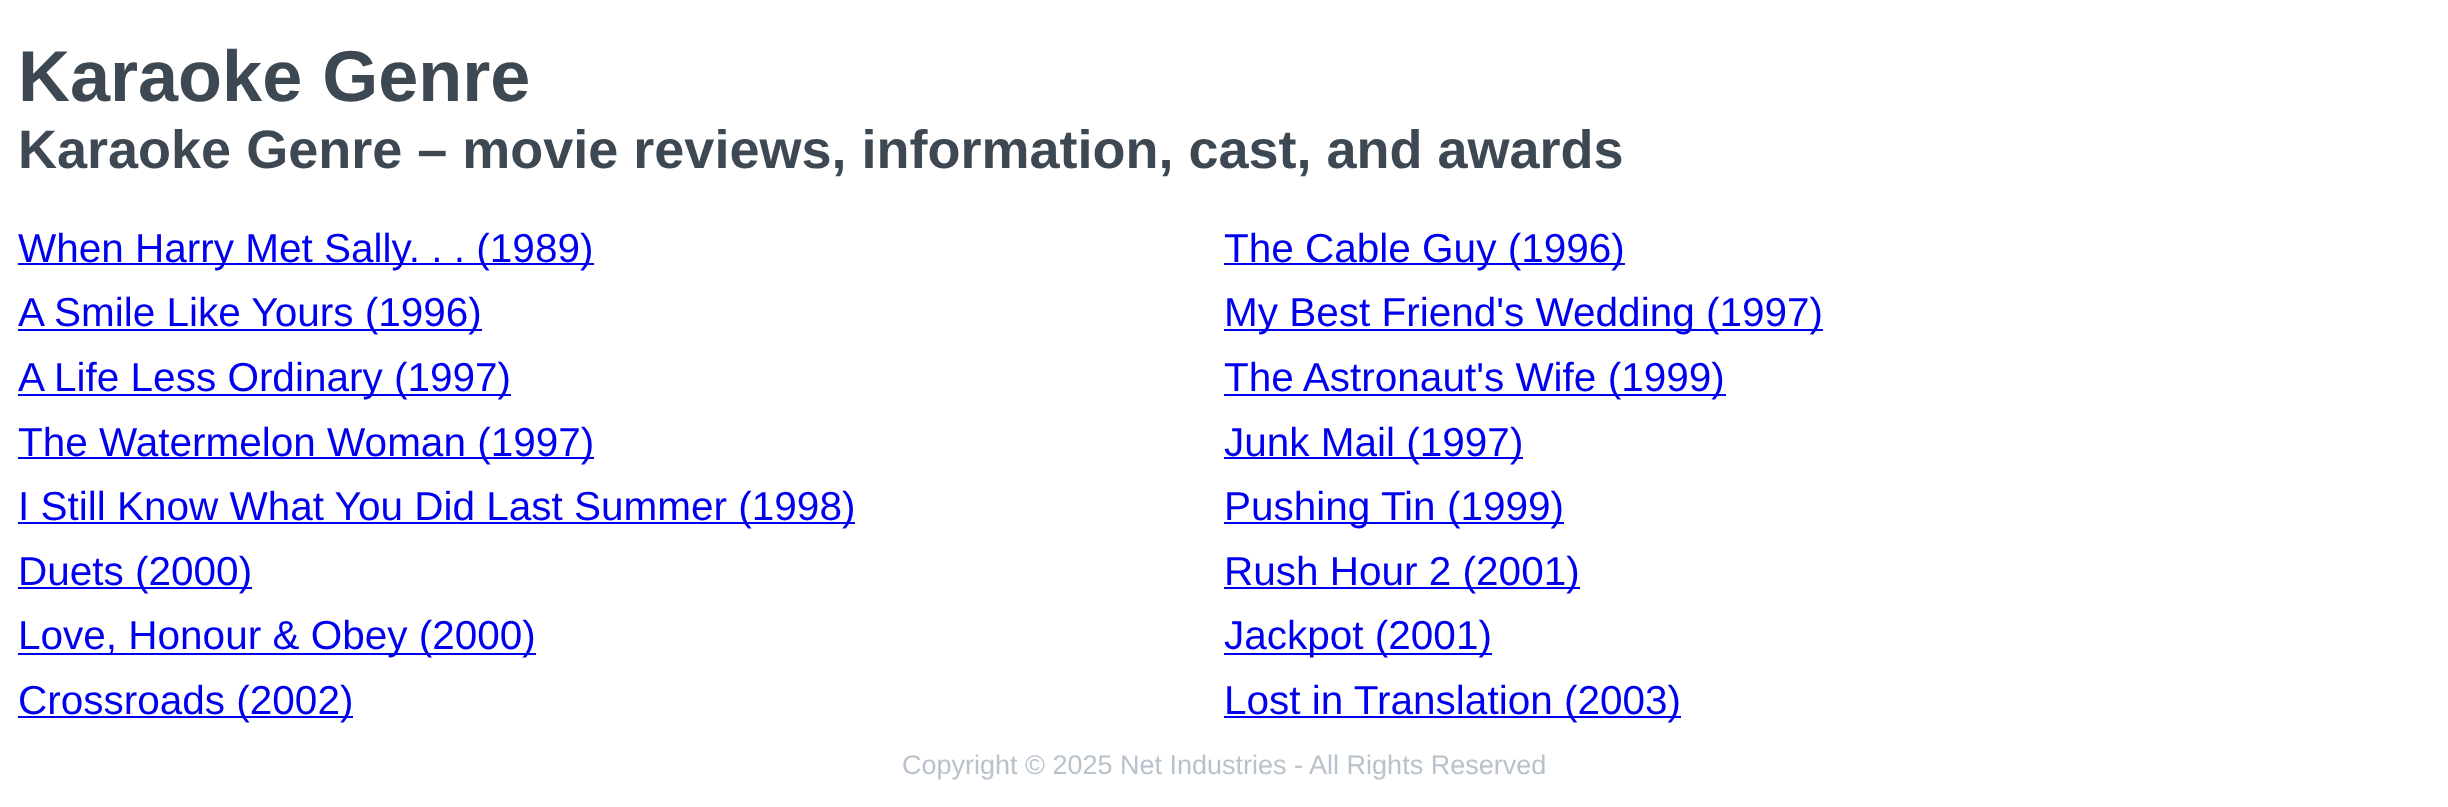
<svg xmlns="http://www.w3.org/2000/svg" width="2448" height="807">
<rect width="100%" height="100%" fill="#fff"/>
<text x="18" y="101" style="font-family:Liberation Sans;font-size:72px;font-weight:bold;fill:#3d4852">Karaoke Genre</text>
<text x="18" y="168" style="font-family:Liberation Sans;font-size:54px;font-weight:bold;fill:#3d4852">Karaoke Genre – movie reviews, information, cast, and awards</text>
<rect x="18" y="263" width="576" height="2" fill="#00e"/>
<text x="18" y="262" style="font-family:Liberation Sans;font-size:40.5px;fill:#00e">When Harry Met Sally. . . (1989)</text>
<rect x="1224" y="263" width="401" height="2" fill="#00e"/>
<text x="1224" y="262" style="font-family:Liberation Sans;font-size:40.5px;fill:#00e">The Cable Guy (1996)</text>
<rect x="18" y="329" width="464" height="2" fill="#00e"/>
<text x="18" y="326" style="font-family:Liberation Sans;font-size:40.5px;fill:#00e">A Smile Like Yours (1996)</text>
<rect x="1224" y="329" width="599" height="2" fill="#00e"/>
<text x="1224" y="326" style="font-family:Liberation Sans;font-size:40.5px;fill:#00e">My Best Friend's Wedding (1997)</text>
<rect x="18" y="394" width="493" height="2" fill="#00e"/>
<text x="18" y="391" style="font-family:Liberation Sans;font-size:40.5px;fill:#00e">A Life Less Ordinary (1997)</text>
<rect x="1224" y="394" width="502" height="2" fill="#00e"/>
<text x="1224" y="391" style="font-family:Liberation Sans;font-size:40.5px;fill:#00e">The Astronaut's Wife (1999)</text>
<rect x="18" y="457" width="576" height="2" fill="#00e"/>
<text x="18" y="456" style="font-family:Liberation Sans;font-size:40.5px;fill:#00e">The Watermelon Woman (1997)</text>
<rect x="1224" y="457" width="299" height="2" fill="#00e"/>
<text x="1224" y="456" style="font-family:Liberation Sans;font-size:40.5px;fill:#00e">Junk Mail (1997)</text>
<rect x="18" y="522" width="837" height="2" fill="#00e"/>
<text x="18" y="520" style="font-family:Liberation Sans;font-size:40.5px;fill:#00e">I Still Know What You Did Last Summer (1998)</text>
<rect x="1224" y="522" width="340" height="2" fill="#00e"/>
<text x="1224" y="520" style="font-family:Liberation Sans;font-size:40.5px;fill:#00e">Pushing Tin (1999)</text>
<rect x="18" y="587" width="234" height="2" fill="#00e"/>
<text x="18" y="585" style="font-family:Liberation Sans;font-size:40.5px;fill:#00e">Duets (2000)</text>
<rect x="1224" y="587" width="356" height="2" fill="#00e"/>
<text x="1224" y="585" style="font-family:Liberation Sans;font-size:40.5px;fill:#00e">Rush Hour 2 (2001)</text>
<rect x="18" y="653" width="518" height="2" fill="#00e"/>
<text x="18" y="649" style="font-family:Liberation Sans;font-size:40.5px;fill:#00e">Love, Honour &amp; Obey (2000)</text>
<rect x="1224" y="653" width="268" height="2" fill="#00e"/>
<text x="1224" y="649" style="font-family:Liberation Sans;font-size:40.5px;fill:#00e">Jackpot (2001)</text>
<rect x="18" y="716" width="335" height="2" fill="#00e"/>
<text x="18" y="714" style="font-family:Liberation Sans;font-size:40.5px;fill:#00e">Crossroads (2002)</text>
<rect x="1224" y="716" width="457" height="2" fill="#00e"/>
<text x="1224" y="714" style="font-family:Liberation Sans;font-size:40.5px;fill:#00e">Lost in Translation (2003)</text>
<text x="902" y="774" style="font-family:Liberation Sans;font-size:27px;fill:#b8c2cc">Copyright © 2025 Net Industries - All Rights Reserved</text>
</svg>
